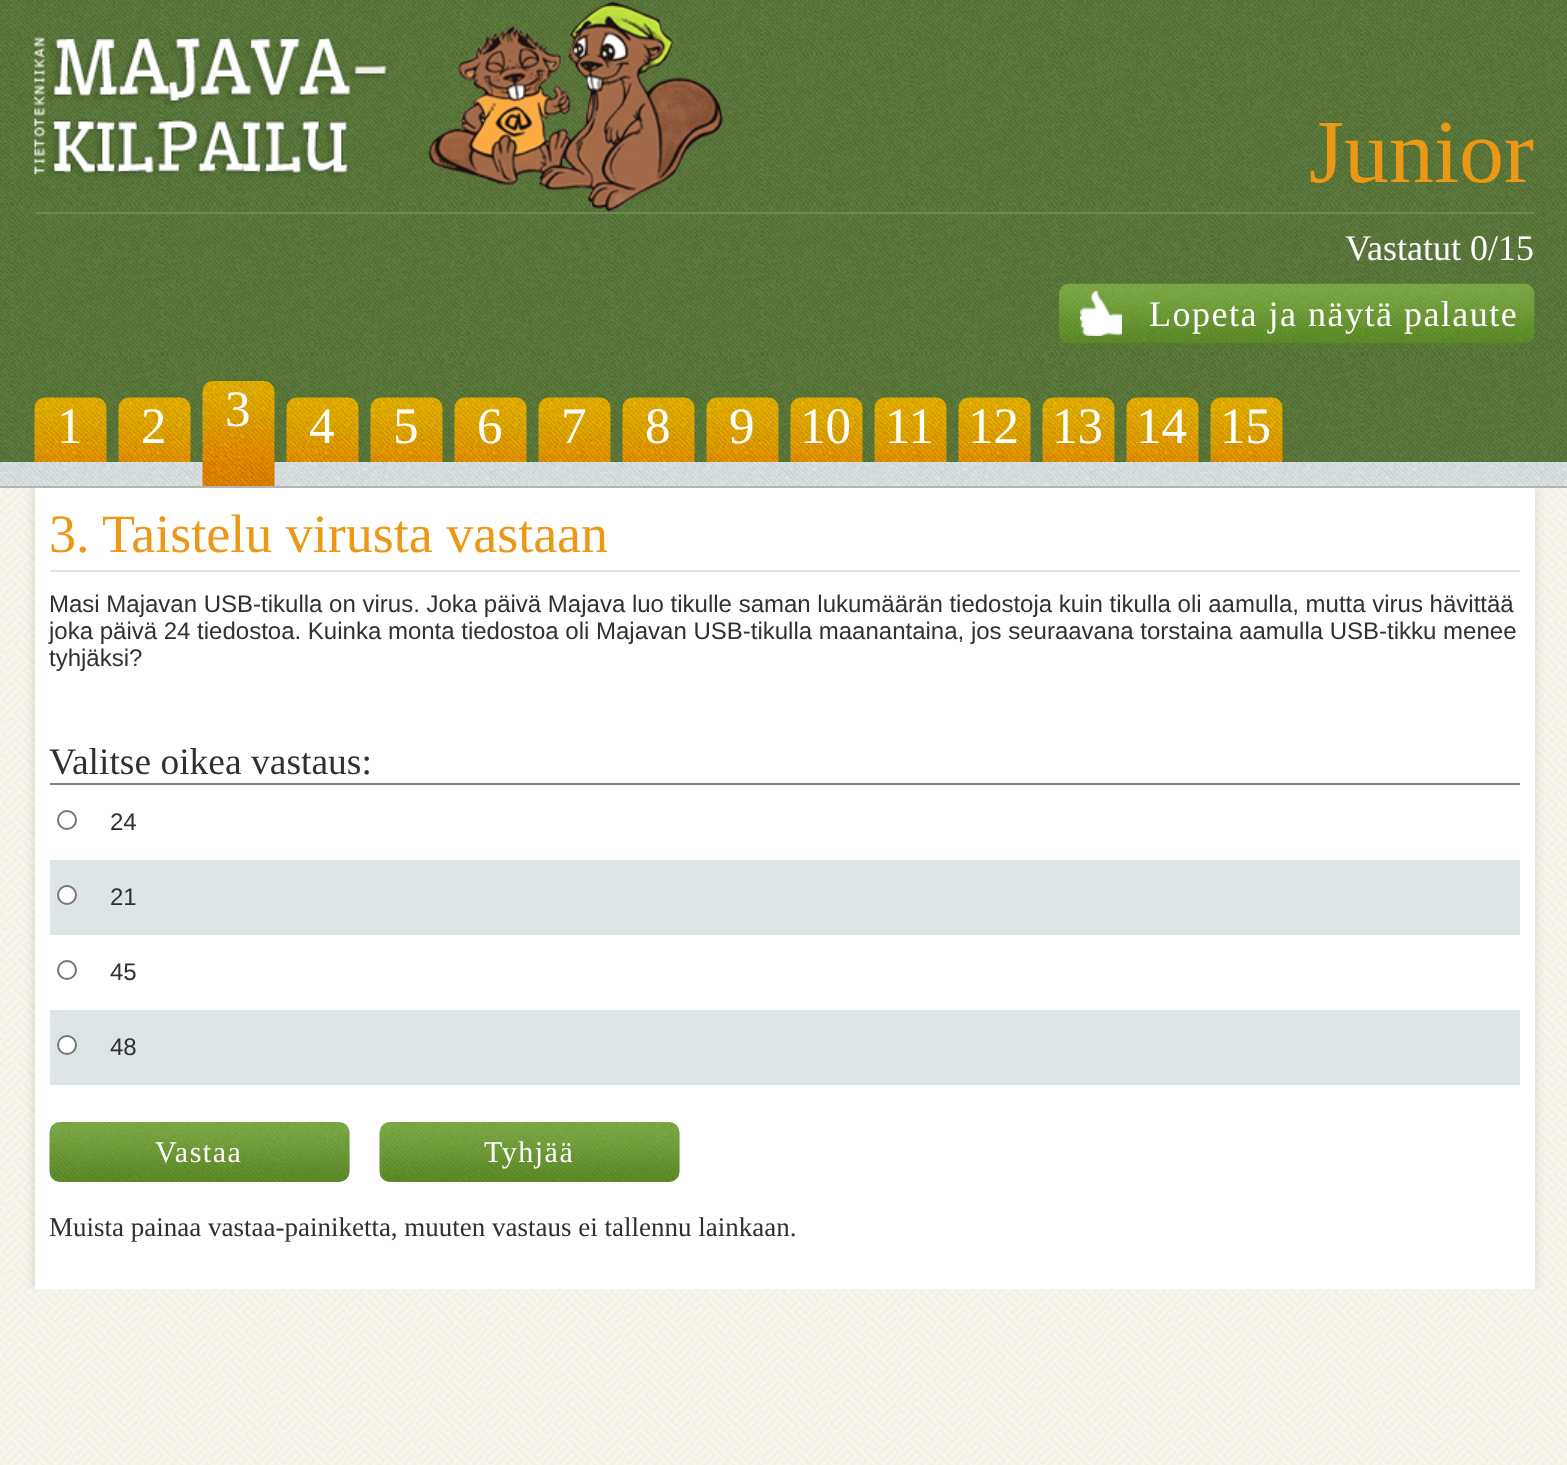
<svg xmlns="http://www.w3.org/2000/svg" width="1567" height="1465">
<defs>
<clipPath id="clip1"><rect x="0" y="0" width="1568" height="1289"/></clipPath>
</defs>
<rect width="100%" height="100%" fill="#fff"/>
<image x="0" y="488" width="1567" height="977" href="media/1.png"/>
<image x="0" y="0" width="1567" height="462" href="media/2.png"/>
<rect x="35" y="212" width="1500" height="2" fill="#6c8a49"/>
<image x="34" y="1" width="689" height="211" href="media/3.png"/>
<text x="1309" y="182" style="font-family:Liberation Serif;font-size:90px;fill:#ea9816">Junior</text>
<text x="1345" y="260" style="font-family:Liberation Serif;font-size:36px;fill:#fff">Vastatut 0/15</text>
<image x="1059" y="283" width="476" height="61" href="media/4.png"/>
<image x="1080" y="291" width="42" height="45" href="media/5.png"/>
<text x="1149" y="326" style="font-family:Liberation Serif;font-size:36px;letter-spacing:1.5px;fill:#fff">Lopeta ja näytä palaute</text>
<image x="34" y="397" width="73" height="65" href="media/6.png"/>
<text x="57" y="443" style="font-family:Liberation Serif;font-size:51px;fill:#fff">1</text>
<image x="118" y="397" width="73" height="65" href="media/7.png"/>
<text x="141" y="443" style="font-family:Liberation Serif;font-size:51px;fill:#fff">2</text>
<g clip-path="url(#clip1)">
<rect x="33" y="486" width="1503" height="804" fill="#0000001a" filter="blur(4.5px)"/>
</g>
<image x="0" y="462" width="1567" height="24" href="media/21.png"/>
<image x="202" y="381" width="73" height="105" href="media/8.png"/>
<text x="225" y="426" style="font-family:Liberation Serif;font-size:51px;fill:#fff">3</text>
<image x="286" y="397" width="73" height="65" href="media/9.png"/>
<text x="309" y="443" style="font-family:Liberation Serif;font-size:51px;fill:#fff">4</text>
<image x="370" y="397" width="73" height="65" href="media/10.png"/>
<text x="393" y="443" style="font-family:Liberation Serif;font-size:51px;fill:#fff">5</text>
<image x="454" y="397" width="73" height="65" href="media/11.png"/>
<text x="477" y="443" style="font-family:Liberation Serif;font-size:51px;fill:#fff">6</text>
<image x="538" y="397" width="73" height="65" href="media/12.png"/>
<text x="561" y="443" style="font-family:Liberation Serif;font-size:51px;fill:#fff">7</text>
<image x="622" y="397" width="73" height="65" href="media/13.png"/>
<text x="645" y="443" style="font-family:Liberation Serif;font-size:51px;fill:#fff">8</text>
<image x="706" y="397" width="73" height="65" href="media/14.png"/>
<text x="729" y="443" style="font-family:Liberation Serif;font-size:51px;fill:#fff">9</text>
<image x="790" y="397" width="73" height="65" href="media/15.png"/>
<text x="800" y="443" style="font-family:Liberation Serif;font-size:51px;fill:#fff">10</text>
<image x="874" y="397" width="73" height="65" href="media/16.png"/>
<text x="885" y="443" style="font-family:Liberation Serif;font-size:51px;fill:#fff">11</text>
<image x="958" y="397" width="73" height="65" href="media/17.png"/>
<text x="968" y="443" style="font-family:Liberation Serif;font-size:51px;fill:#fff">12</text>
<image x="1042" y="397" width="73" height="65" href="media/18.png"/>
<text x="1052" y="443" style="font-family:Liberation Serif;font-size:51px;fill:#fff">13</text>
<image x="1126" y="397" width="73" height="65" href="media/19.png"/>
<text x="1136" y="443" style="font-family:Liberation Serif;font-size:51px;fill:#fff">14</text>
<image x="1210" y="397" width="73" height="65" href="media/20.png"/>
<text x="1220" y="443" style="font-family:Liberation Serif;font-size:51px;fill:#fff">15</text>
<rect y="486" width="1567" height="2" fill="#b4b4b4"/>
<rect x="35" y="488" width="1500" height="801" fill="#fff"/>
<rect x="50" y="570" width="1470" height="2" fill="#e3e3e3"/>
<text x="49" y="552" style="font-family:Liberation Serif;font-size:54px;fill:#ea9816">3. Taistelu virusta vastaan</text>
<text x="49" y="612" style="font-family:Liberation Sans;font-size:24px;fill:#2f3030">Masi Majavan USB-tikulla on virus. Joka päivä Majava luo tikulle saman lukumäärän tiedostoja kuin tikulla oli aamulla, mutta virus hävittää</text>
<text x="49" y="639" style="font-family:Liberation Sans;font-size:24px;fill:#2f3030">joka päivä 24 tiedostoa. Kuinka monta tiedostoa oli Majavan USB-tikulla maanantaina, jos seuraavana torstaina aamulla USB-tikku menee</text>
<text x="49" y="666" style="font-family:Liberation Sans;font-size:24px;fill:#2f3030">tyhjäksi?</text>
<text x="49" y="774" style="font-family:Liberation Serif;font-size:37.5px;fill:#2f3030">Valitse oikea vastaus:</text>
<rect x="50" y="783" width="1470" height="2" fill="#808080"/>
<circle cx="67" cy="820" r="9" fill="none" stroke="#767676" stroke-width="2"/>
<text x="110" y="830" style="font-family:Liberation Sans;font-size:24px;fill:#2f3030">24</text>
<rect x="50" y="860" width="1470" height="75" fill="#dde5e7"/>
<circle cx="67" cy="895" r="9" fill="#fff" stroke="#767676" stroke-width="2"/>
<text x="110" y="905" style="font-family:Liberation Sans;font-size:24px;fill:#2f3030">21</text>
<circle cx="67" cy="970" r="9" fill="none" stroke="#767676" stroke-width="2"/>
<text x="110" y="980" style="font-family:Liberation Sans;font-size:24px;fill:#2f3030">45</text>
<rect x="50" y="1010" width="1470" height="75" fill="#dde5e7"/>
<circle cx="67" cy="1045" r="9" fill="#fff" stroke="#767676" stroke-width="2"/>
<text x="110" y="1055" style="font-family:Liberation Sans;font-size:24px;fill:#2f3030">48</text>
<rect x="50" y="1122" width="300" height="60" rx="11" fill="#efefef"/>
<image x="49" y="1122" width="301" height="60" href="media/22.png"/>
<text x="155" y="1162" style="font-family:Liberation Serif;font-size:30px;letter-spacing:1.5px;fill:#fff">Vastaa</text>
<rect x="380" y="1122" width="300" height="60" rx="11" fill="#efefef"/>
<image x="379" y="1122" width="301" height="60" href="media/23.png"/>
<text x="484" y="1162" style="font-family:Liberation Serif;font-size:30px;letter-spacing:1.5px;fill:#fff">Tyhjää</text>
<text x="49" y="1236" style="font-family:Liberation Serif;font-size:27px;fill:#2f3030">Muista painaa vastaa-painiketta, muuten vastaus ei tallennu lainkaan.</text>
</svg>
